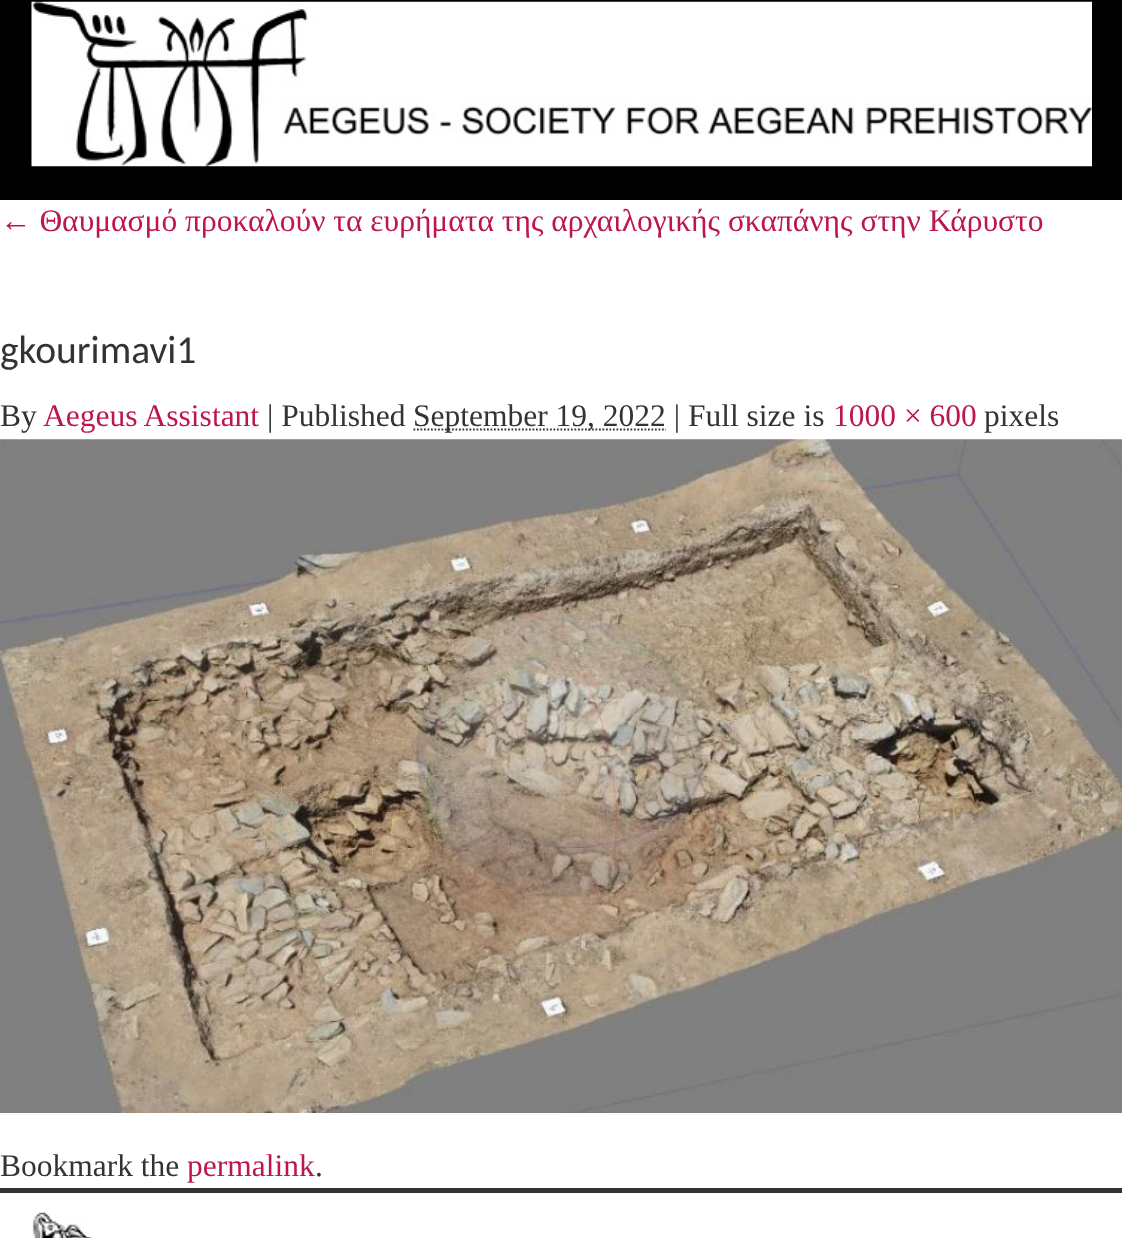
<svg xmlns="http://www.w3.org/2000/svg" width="1122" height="1238">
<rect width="100%" height="100%" fill="#fff"/>
<rect width="1122" height="200" fill="#000"/>
<image x="31" y="1" width="1061" height="166" href="media/1.png"/>
<text x="0" y="231" style="font-family:Liberation Serif;font-size:31.5px;fill:#bd1550">← Θαυμασμό προκαλούν τα ευρήματα της αρχαιλογικής σκαπάνης στην Κάρυστο</text>
<text x="0" y="363" style="font-family:Carlito;font-size:39.5px;fill:#333">gkourimavi1</text>
<text x="0" y="426" style="font-family:Liberation Serif;font-size:31.5px;fill:#333">By</text>
<text x="43" y="426" style="font-family:Liberation Serif;font-size:31.5px;fill:#bd1550">Aegeus Assistant</text>
<text x="267" y="426" style="font-family:Liberation Serif;font-size:31.5px;fill:#333">| Published</text>
<path d="M413.5 429.5h252.5" fill="none" stroke="#333" stroke-width="1.8" stroke-dasharray="1.75 1.75"/>
<text x="413" y="426" style="font-family:Liberation Serif;font-size:31.5px;fill:#333">September 19, 2022 | Full size is</text>
<text x="833" y="426" style="font-family:Liberation Serif;font-size:31.5px;fill:#bd1550">1000 × 600</text>
<text x="984" y="426" style="font-family:Liberation Serif;font-size:31.5px;fill:#333">pixels</text>
<image x="0" y="439" width="1122" height="674" href="media/2.png"/>
<text x="0" y="1176" style="font-family:Liberation Serif;font-size:31.5px;fill:#333">Bookmark the</text>
<text x="187" y="1176" style="font-family:Liberation Serif;font-size:31.5px;fill:#bd1550">permalink</text>
<text x="315" y="1176" style="font-family:Liberation Serif;font-size:31.5px;fill:#333">.</text>
<rect y="1188" width="1122" height="5" fill="#333"/>
<image x="32" y="1212" width="62" height="26" href="media/3.png"/>
</svg>
